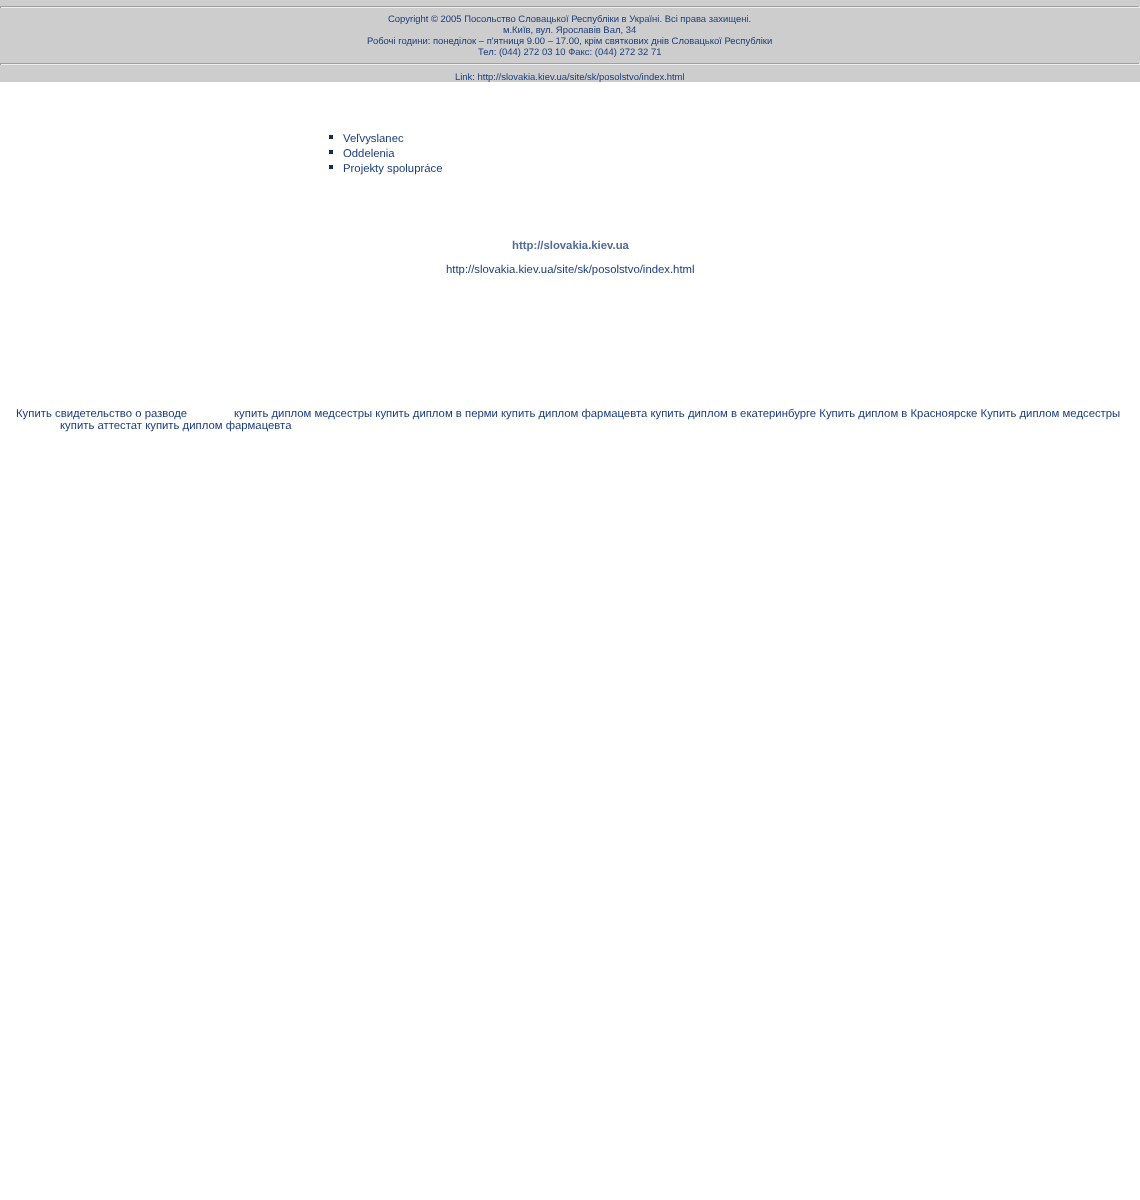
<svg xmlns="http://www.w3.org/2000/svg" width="1140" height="1200">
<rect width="100%" height="100%" fill="#fff"/>
<rect width="1140" height="82" fill="#cdcdcd"/>
<rect y="6" width="1140" height="1" fill="#9f9f9f"/>
<rect x="1139" y="6" width="1" height="2" fill="#eee"/>
<rect y="7" width="1140" height="1" fill="#eee"/>
<rect y="6" width="1" height="2" fill="#9f9f9f"/>
<text x="388" y="22" style="font-family:Liberation Sans;font-size:9.45px;fill:#1a3d7f">Copyright © 2005 Посольство Словацької Республіки в Україні. Всі права захищені.</text>
<text x="503" y="33" style="font-family:Liberation Sans;font-size:9.45px;fill:#1a3d7f">м.Київ, вул. Ярославів Вал, 34</text>
<text x="367" y="44" style="font-family:Liberation Sans;font-size:9.45px;fill:#1a3d7f">Робочі години: понеділок – п'ятниця 9.00 – 17.00, крім святкових днів Словацької Республіки</text>
<text x="478" y="55" style="font-family:Liberation Sans;font-size:9.45px;fill:#1a3d7f">Тел: (044) 272 03 10 Факс: (044) 272 32 71</text>
<rect y="63" width="1140" height="1" fill="#9f9f9f"/>
<rect x="1139" y="63" width="1" height="2" fill="#eee"/>
<rect y="64" width="1140" height="1" fill="#eee"/>
<rect y="63" width="1" height="2" fill="#9f9f9f"/>
<text x="455" y="80" style="font-family:Liberation Sans;font-size:9.45px;fill:#1a3d7f">Link: http://slovakia.kiev.ua/site/sk/posolstvo/index.html</text>
<rect x="329" y="135" width="4" height="4" fill="#152b57"/>
<text x="343" y="142" style="font-family:Liberation Sans;font-size:11.33px;fill:#1a3d7f">Veľvyslanec</text>
<rect x="329" y="150" width="4" height="4" fill="#152b57"/>
<text x="343" y="157" style="font-family:Liberation Sans;font-size:11.33px;fill:#1a3d7f">Oddelenia</text>
<rect x="329" y="165" width="4" height="4" fill="#152b57"/>
<text x="343" y="172" style="font-family:Liberation Sans;font-size:11.33px;fill:#1a3d7f">Projekty spolupráce</text>
<text x="512" y="249" style="font-family:Liberation Sans;font-size:11.33px;font-weight:bold;fill:#516a9c">http://slovakia.kiev.ua</text>
<text x="446" y="273" style="font-family:Liberation Sans;font-size:11.33px;fill:#1a3d7f">http://slovakia.kiev.ua/site/sk/posolstvo/index.html</text>
<text x="16" y="417" style="font-family:Liberation Sans;font-size:11.33px;fill:#1a3d7f">Купить свидетельство о разводе</text>
<text x="234" y="417" style="font-family:Liberation Sans;font-size:11.33px;fill:#1a3d7f">купить диплом медсестры купить диплом в перми купить диплом фармацевта купить диплом в екатеринбурге Купить диплом в Красноярске Купить диплом медсестры</text>
<text x="60" y="429" style="font-family:Liberation Sans;font-size:11.33px;fill:#1a3d7f">купить аттестат купить диплом фармацевта</text>
</svg>
